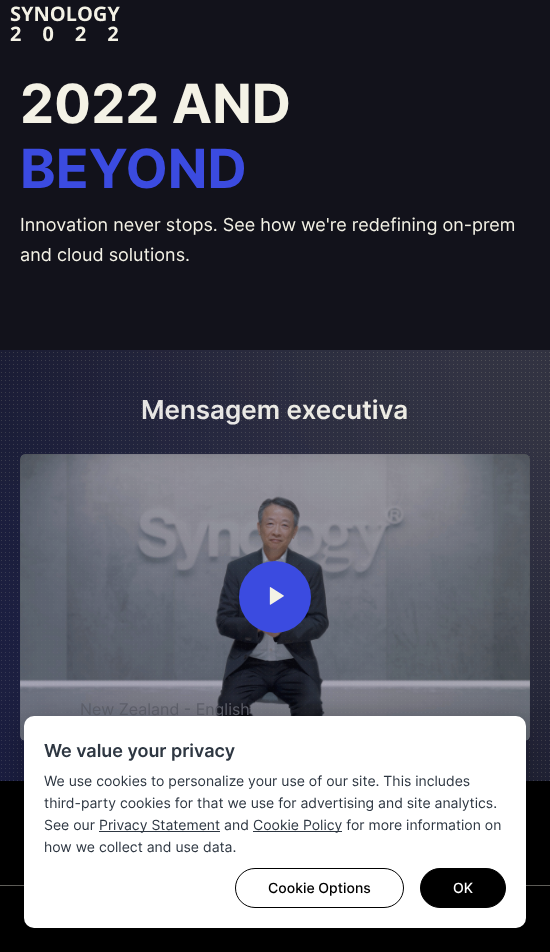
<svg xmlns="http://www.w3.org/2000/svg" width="550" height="952">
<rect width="100%" height="100%" fill="#000"/>
<rect width="550" height="350" fill="#12121b"/>
<image x="10" y="6" width="110" height="36" href="media/1.png"/>
<text x="20" y="123" style="font-family:Inter;font-size:54px;font-weight:bold;fill:#f4f2e6">2022 AND</text>
<text x="20" y="188" style="font-family:Inter;font-size:54px;font-weight:bold;fill:#3b4be0">BEYOND</text>
<text x="20" y="231" style="font-family:Inter;font-size:18px;fill:#f4f2e6">Innovation never stops. See how we're redefining on-prem</text>
<text x="20" y="261" style="font-family:Inter;font-size:18px;fill:#f4f2e6">and cloud solutions.</text>
<rect y="350" width="550" height="431" fill="#131425"/>
<text x="141" y="419" style="font-family:Inter;font-size:26px;font-weight:600;fill:#f4f2e6">Mensagem executiva</text>
<image x="1" y="352" width="549" height="429" href="media/4.png"/>
<image x="0" y="350" width="550" height="431" href="media/2.png"/>
<image x="0" y="350" width="550" height="431" href="media/3.png"/>
<image x="20" y="454" width="510" height="287" href="media/5.png"/>
<circle cx="275" cy="597" r="36" fill="#3b4be0"/>
<image x="269" y="587" width="15" height="18" href="media/6.png"/>
<rect y="885" width="550" height="1" fill="#62615c"/>
<text x="80" y="715" style="font-family:Inter;font-size:16px;fill:#62646f">New Zealand - English</text>
<rect x="24" y="716" width="502" height="212" rx="10" fill="#00000033" filter="blur(15px)"/>
<rect x="24" y="716" width="502" height="212" rx="10" fill="#fff"/>
<text x="44" y="757" style="font-family:Inter;font-size:18px;font-weight:600;fill:#2e3742">We value your privacy</text>
<text x="44" y="786" style="font-family:Inter;font-size:14px;fill:#2e3742">We use cookies to personalize your use of our site. This includes</text>
<text x="44" y="808" style="font-family:Inter;font-size:14px;fill:#2e3742">third-party cookies for that we use for advertising and site analytics.</text>
<text x="44" y="830" style="font-family:Inter;font-size:14px;fill:#2e3742">See our</text>
<rect x="99" y="831" width="121" height="1" fill="#2e3742"/>
<text x="99" y="830" style="font-family:Inter;font-size:14px;fill:#2e3742">Privacy Statement and</text>
<rect x="253" y="831" width="89" height="1" fill="#2e3742"/>
<text x="253" y="830" style="font-family:Inter;font-size:14px;fill:#2e3742">Cookie Policy for more information on</text>
<text x="44" y="852" style="font-family:Inter;font-size:14px;fill:#2e3742">how we collect and use data.</text>
<rect x="235.5" y="868.5" width="168" height="39" rx="19.5" fill="none" stroke="#000"/>
<text x="268" y="893" style="font-family:Inter;font-size:14px;font-weight:500;fill:#000">Cookie Options</text>
<rect x="420.5" y="868.5" width="85" height="39" rx="19.5" fill="#000" stroke="#000"/>
<text x="453" y="893" style="font-family:Inter;font-size:14px;font-weight:500;fill:#fff">OK</text>
</svg>
